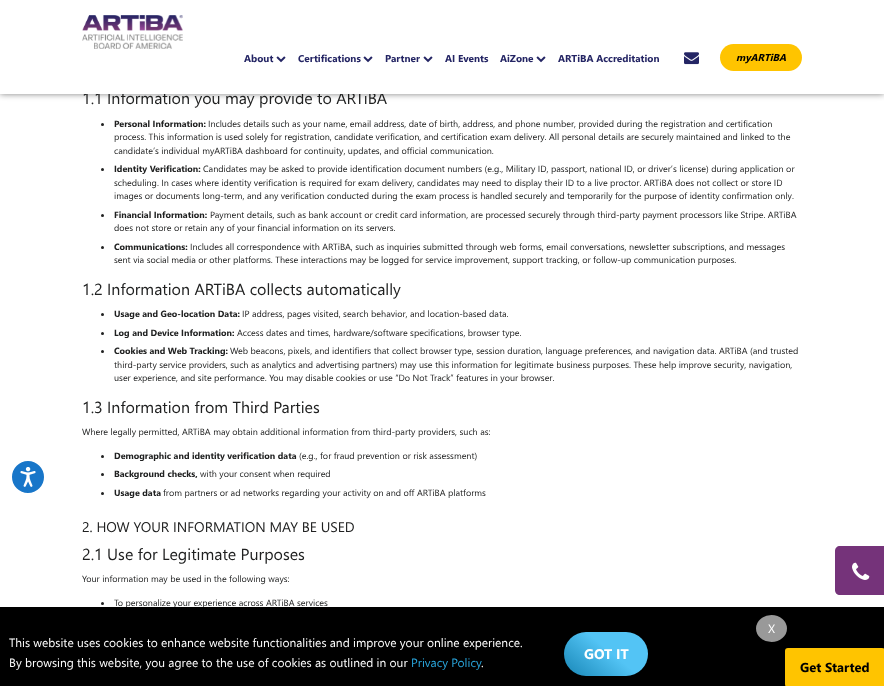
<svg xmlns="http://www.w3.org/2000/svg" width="884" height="686">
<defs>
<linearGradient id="g1" gradientUnits="userSpaceOnUse" x1="572" y1="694" x2="634" y2="620"><stop offset="0" stop-color="#0d7bab"/><stop offset="0.59" stop-color="#53c4f5"/></linearGradient>
</defs>
<rect width="100%" height="100%" fill="#fff"/>
<rect width="884" height="94" fill="#00000080" filter="blur(3px)"/>
<text x="82" y="104" style="font-family:Segoe UI;font-size:16px;fill:#202121">1.1 Information you may provide to ARTiBA</text>
<rect width="884" height="94" fill="#fff"/>
<image x="82" y="15" width="101" height="34" href="media/1.png"/>
<text x="244" y="62" style="font-family:Segoe UI;font-size:10px;font-weight:bold;fill:#242564">About</text>
<image x="276" y="56" width="10" height="7" href="media/2.png"/>
<text x="298" y="62" style="font-family:Segoe UI;font-size:10px;font-weight:bold;fill:#242564">Certifications</text>
<image x="363" y="56" width="10" height="7" href="media/2.png"/>
<text x="385" y="62" style="font-family:Segoe UI;font-size:10px;font-weight:bold;fill:#242564">Partner</text>
<image x="423" y="56" width="10" height="7" href="media/2.png"/>
<text x="445" y="62" style="font-family:Segoe UI;font-size:10px;font-weight:bold;fill:#242564">AI Events</text>
<text x="500" y="62" style="font-family:Segoe UI;font-size:10px;font-weight:bold;fill:#242564">AiZone</text>
<image x="536" y="56" width="10" height="7" href="media/2.png"/>
<text x="558" y="62" style="font-family:Segoe UI;font-size:10px;font-weight:bold;fill:#242564">ARTiBA Accreditation</text>
<image x="684" y="52" width="15" height="13" href="media/3.png"/>
<rect x="720" y="44" width="82" height="27" rx="13.5" fill="#ffc400"/>
<text x="736" y="61" style="font-family:Segoe UI;font-size:10px;font-weight:bold;font-style:italic;fill:#000">myARTiBA</text>
<circle cx="28" cy="477" r="17" fill="#1876c9" stroke="#fff" stroke-width="2"/>
<image x="20" y="467" width="16" height="20" href="media/4.png"/>
<circle cx="102.5" cy="124.5" r="1.5" fill="#202121"/>
<text x="114" y="127" style="font-family:Segoe UI;font-size:9px;font-weight:bold;fill:#202121">Personal Information:</text>
<text x="208" y="127" style="font-family:Segoe UI;font-size:9px;fill:#202121">Includes details such as your name, email address, date of birth, address, and phone number, provided during the registration and certification</text>
<text x="114" y="140" style="font-family:Segoe UI;font-size:9px;fill:#202121">process. This information is used solely for registration, candidate verification, and certification exam delivery. All personal details are securely maintained and linked to the</text>
<text x="114" y="154" style="font-family:Segoe UI;font-size:9px;fill:#202121">candidate’s individual myARTiBA dashboard for continuity, updates, and official communication.</text>
<circle cx="102.5" cy="169.5" r="1.5" fill="#202121"/>
<text x="114" y="172" style="font-family:Segoe UI;font-size:9px;font-weight:bold;fill:#202121">Identity Verification:</text>
<text x="203" y="172" style="font-family:Segoe UI;font-size:9px;fill:#202121">Candidates may be asked to provide identification document numbers (e.g., Military ID, passport, national ID, or driver’s license) during application or</text>
<text x="114" y="186" style="font-family:Segoe UI;font-size:9px;fill:#202121">scheduling. In cases where identity verification is required for exam delivery, candidates may need to display their ID to a live proctor. ARTiBA does not collect or store ID</text>
<text x="114" y="199" style="font-family:Segoe UI;font-size:9px;fill:#202121">images or documents long-term, and any verification conducted during the exam process is handled securely and temporarily for the purpose of identity confirmation only.</text>
<circle cx="102.5" cy="215.5" r="1.5" fill="#202121"/>
<text x="114" y="218" style="font-family:Segoe UI;font-size:9px;font-weight:bold;fill:#202121">Financial Information:</text>
<text x="210" y="218" style="font-family:Segoe UI;font-size:9px;fill:#202121">Payment details, such as bank account or credit card information, are processed securely through third-party payment processors like Stripe. ARTiBA</text>
<text x="114" y="231" style="font-family:Segoe UI;font-size:9px;fill:#202121">does not store or retain any of your financial information on its servers.</text>
<circle cx="102.5" cy="247.5" r="1.5" fill="#202121"/>
<text x="114" y="250" style="font-family:Segoe UI;font-size:9px;font-weight:bold;fill:#202121">Communications:</text>
<text x="190" y="250" style="font-family:Segoe UI;font-size:9px;fill:#202121">Includes all correspondence with ARTiBA, such as inquiries submitted through web forms, email conversations, newsletter subscriptions, and messages</text>
<text x="114" y="263" style="font-family:Segoe UI;font-size:9px;fill:#202121">sent via social media or other platforms. These interactions may be logged for service improvement, support tracking, or follow-up communication purposes.</text>
<text x="82" y="295" style="font-family:Segoe UI;font-size:16px;fill:#202121">1.2 Information ARTiBA collects automatically</text>
<circle cx="102.5" cy="314.5" r="1.5" fill="#202121"/>
<text x="114" y="317" style="font-family:Segoe UI;font-size:9px;font-weight:bold;fill:#202121">Usage and Geo-location Data:</text>
<text x="242" y="317" style="font-family:Segoe UI;font-size:9px;fill:#202121">IP address, pages visited, search behavior, and location-based data.</text>
<circle cx="102.5" cy="333.5" r="1.5" fill="#202121"/>
<text x="114" y="336" style="font-family:Segoe UI;font-size:9px;font-weight:bold;fill:#202121">Log and Device Information:</text>
<text x="237" y="336" style="font-family:Segoe UI;font-size:9px;fill:#202121">Access dates and times, hardware/software specifications, browser type.</text>
<circle cx="102.5" cy="351.5" r="1.5" fill="#202121"/>
<text x="114" y="354" style="font-family:Segoe UI;font-size:9px;font-weight:bold;fill:#202121">Cookies and Web Tracking:</text>
<text x="230" y="354" style="font-family:Segoe UI;font-size:9px;fill:#202121">Web beacons, pixels, and identifiers that collect browser type, session duration, language preferences, and navigation data. ARTiBA (and trusted</text>
<text x="114" y="368" style="font-family:Segoe UI;font-size:9px;fill:#202121">third-party service providers, such as analytics and advertising partners) may use this information for legitimate business purposes. These help improve security, navigation,</text>
<text x="114" y="381" style="font-family:Segoe UI;font-size:9px;fill:#202121">user experience, and site performance. You may disable cookies or use “Do Not Track” features in your browser.</text>
<text x="82" y="413" style="font-family:Segoe UI;font-size:16px;fill:#202121">1.3 Information from Third Parties</text>
<text x="82" y="435" style="font-family:Segoe UI;font-size:9px;fill:#202121">Where legally permitted, ARTiBA may obtain additional information from third-party providers, such as:</text>
<circle cx="102.5" cy="456.5" r="1.5" fill="#202121"/>
<text x="114" y="459" style="font-family:Segoe UI;font-size:9px;font-weight:bold;fill:#202121">Demographic and identity verification data</text>
<text x="299" y="459" style="font-family:Segoe UI;font-size:9px;fill:#202121">(e.g., for fraud prevention or risk assessment)</text>
<circle cx="102.5" cy="474.5" r="1.5" fill="#202121"/>
<text x="114" y="477" style="font-family:Segoe UI;font-size:9px;font-weight:bold;fill:#202121">Background checks,</text>
<text x="200" y="477" style="font-family:Segoe UI;font-size:9px;fill:#202121">with your consent when required</text>
<circle cx="102.5" cy="493.5" r="1.5" fill="#202121"/>
<text x="114" y="496" style="font-family:Segoe UI;font-size:9px;font-weight:bold;fill:#202121">Usage data</text>
<text x="163" y="496" style="font-family:Segoe UI;font-size:9px;fill:#202121">from partners or ad networks regarding your activity on and off ARTiBA platforms</text>
<text x="82" y="532" style="font-family:Segoe UI;font-size:14px;fill:#202121">2. HOW YOUR INFORMATION MAY BE USED</text>
<text x="82" y="560" style="font-family:Segoe UI;font-size:16px;fill:#202121">2.1 Use for Legitimate Purposes</text>
<text x="82" y="582" style="font-family:Segoe UI;font-size:9px;fill:#202121">Your information may be used in the following ways:</text>
<circle cx="102.5" cy="603.5" r="1.5" fill="#202121"/>
<text x="114" y="606" style="font-family:Segoe UI;font-size:9px;fill:#202121">To personalize your experience across ARTiBA services</text>
<path d="M840 546h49v49h-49c-3 0-5-2-5-5v-39c0-3 2-5 5-5z" fill="#75337a"/>
<image x="852" y="562" width="18" height="18" href="media/5.png"/>
<rect y="607" width="884" height="79" fill="#000"/>
<ellipse cx="771.5" cy="628.5" rx="15.5" ry="13.5" fill="#999"/>
<text x="768" y="633" style="font-family:Segoe UI;font-size:12px;fill:#fff">X</text>
<text x="9" y="647" style="font-family:Segoe UI;font-size:12px;fill:#fff">This website uses cookies to enhance website functionalities and improve your online experience.</text>
<text x="9" y="667" style="font-family:Segoe UI;font-size:12px;fill:#fff">By browsing this website, you agree to the use of cookies as outlined in our</text>
<text x="411" y="667" style="font-family:Segoe UI;font-size:12px;fill:#2aa7de">Privacy Policy</text>
<text x="481" y="667" style="font-family:Segoe UI;font-size:12px;fill:#fff">.</text>
<rect x="564" y="632" width="84" height="44" rx="22" fill="url(#g1)"/>
<text x="584" y="659" style="font-family:Segoe UI;font-size:14px;font-weight:bold;fill:#fff">GOT IT</text>
<rect x="785" y="648" width="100" height="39" rx="3" fill="#ffc400"/>
<text x="800" y="672" style="font-family:Segoe UI;font-size:13px;font-weight:bold;fill:#000">Get Started</text>
</svg>
